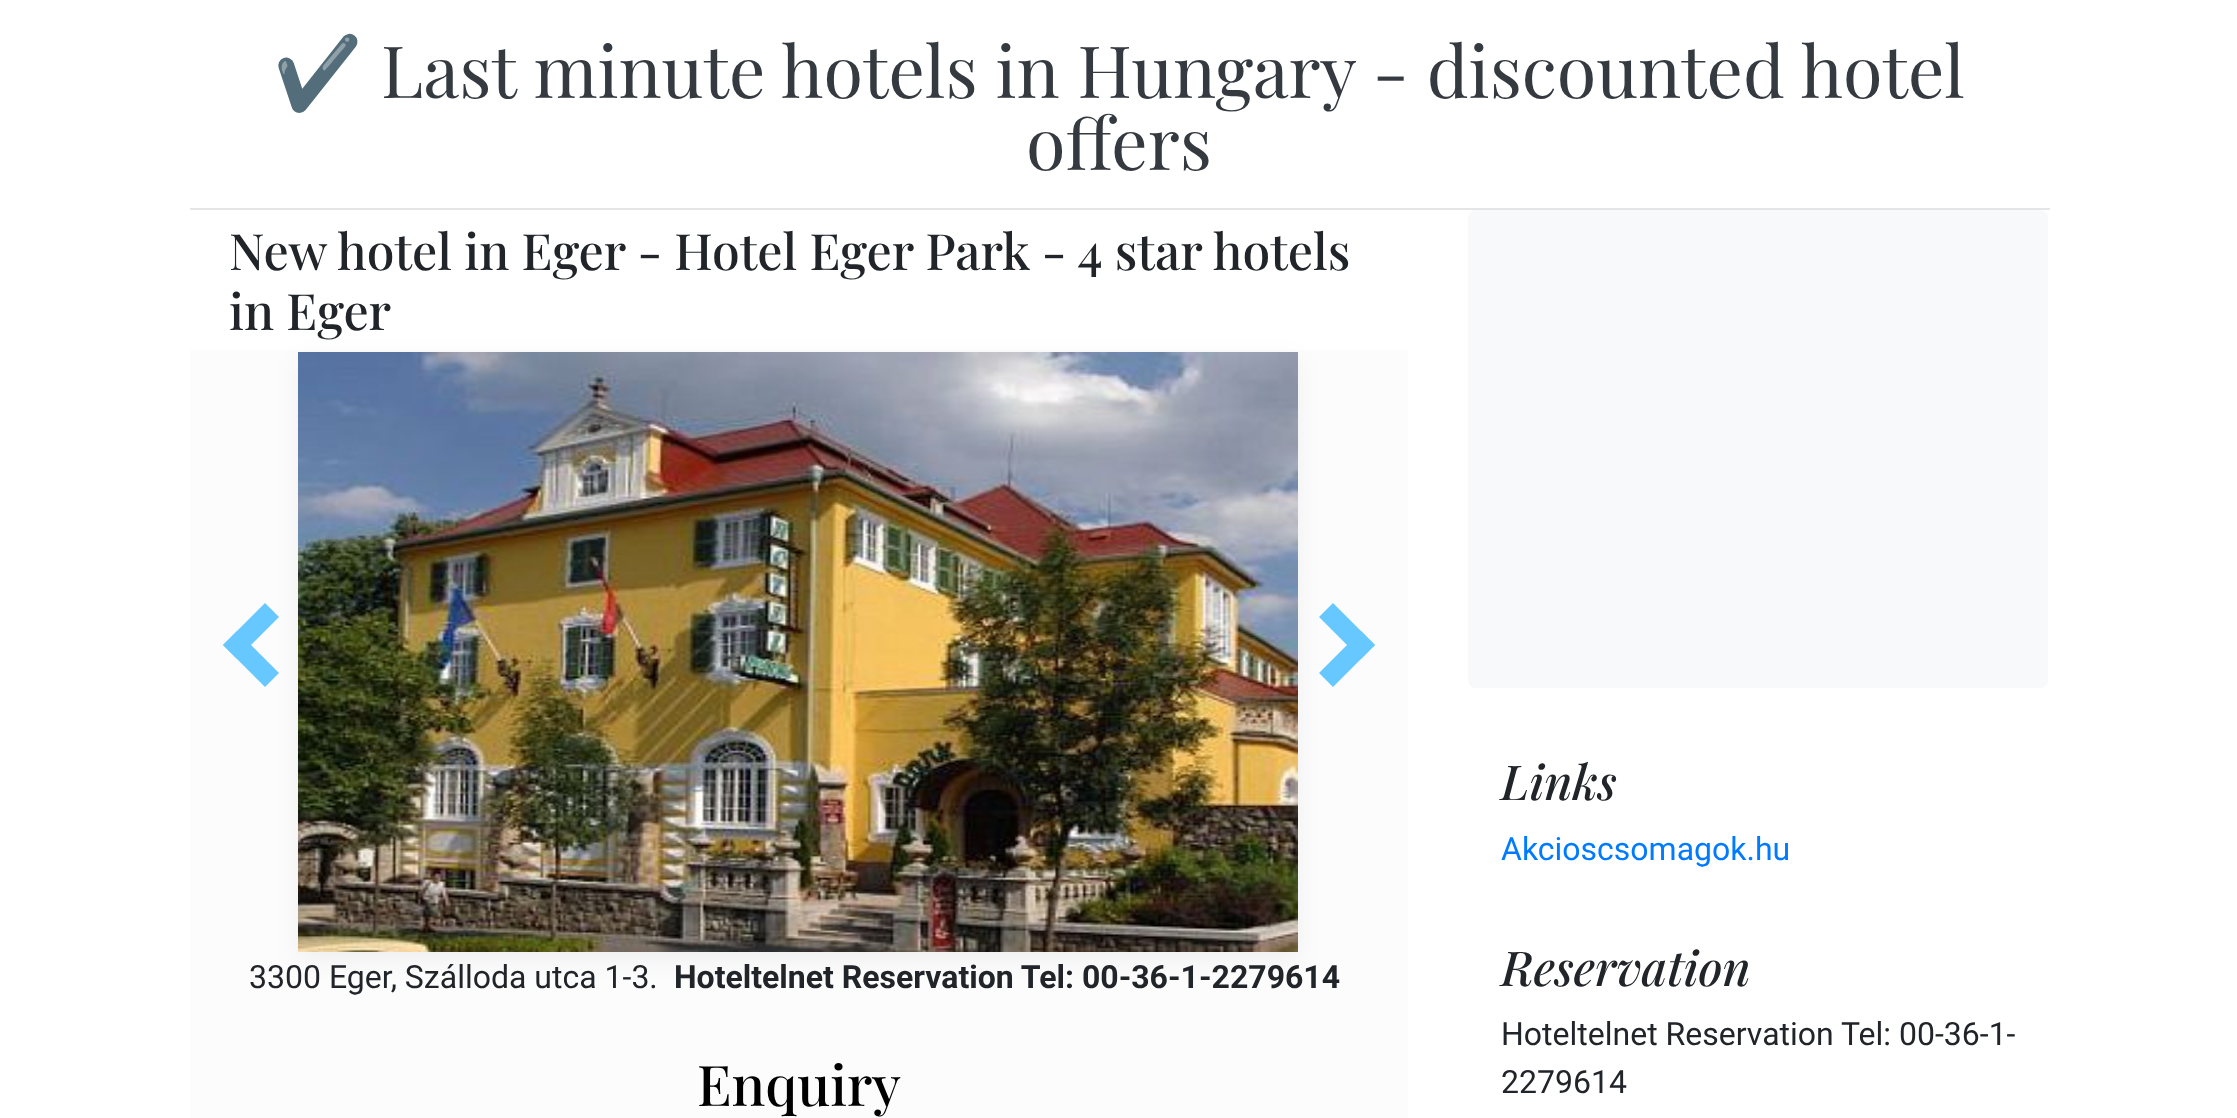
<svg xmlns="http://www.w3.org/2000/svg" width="2237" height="1118">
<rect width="100%" height="100%" fill="#fff"/>
<rect x="190" y="208" width="1860" height="2" fill="#e5e5e5"/>
<text x="273" y="98" style="font-family:Noto Color Emoji;font-size:72px;fill:#343a40">✔️</text>
<text x="381" y="98" style="font-family:Playfair Display;font-size:72px;fill:#343a40">Last minute hotels in Hungary - discounted hotel</text>
<text x="1026" y="170" style="font-family:Playfair Display;font-size:72px;fill:#343a40">offers</text>
<text x="229" y="270" style="font-family:Playfair Display;font-size:50px;font-weight:500;fill:#212529">New hotel in Eger - Hotel Eger Park - 4 star hotels</text>
<text x="229" y="330" style="font-family:Playfair Display;font-size:50px;font-weight:500;fill:#212529">in Eger</text>
<rect x="190" y="350" width="1218" height="768" fill="#fcfcfc"/>
<rect x="298" y="360" width="1000" height="600" fill="#0000000d" filter="blur(12px)"/>
<path d="M279 673l-14 14l-42-42l14-14z" fill="#67c8ff"/>
<path d="M279 617l-42 42l-14-14l42-42z" fill="#67c8ff"/>
<image x="298" y="352" width="1000" height="600" href="media/1.png"/>
<path d="M1319 617l14-14l42 42l-14 14z" fill="#67c8ff"/>
<path d="M1319 673l42-42l14 14l-42 42z" fill="#67c8ff"/>
<text x="249" y="988" style="font-family:Roboto;font-size:32px;fill:#212529">3300 Eger, Szálloda utca 1-3.</text>
<text x="674" y="988" style="font-family:Roboto;font-size:32px;font-weight:bold;fill:#212529">Hoteltelnet Reservation Tel: 00-36-1-2279614</text>
<text x="697" y="1106" style="font-family:Playfair Display;font-size:56px;font-weight:500;fill:#000">Enquiry</text>
<rect x="1468" y="210" width="580" height="478" rx="8" fill="#f8f9fa"/>
<text x="1501" y="800" style="font-family:Playfair Display;font-size:48px;font-weight:500;font-style:italic;fill:#212529">Links</text>
<text x="1501" y="860" style="font-family:Roboto;font-size:32px;fill:#007bff">Akcioscsomagok.hu</text>
<text x="1501" y="986" style="font-family:Playfair Display;font-size:48px;font-weight:500;font-style:italic;fill:#212529">Reservation</text>
<text x="1501" y="1045" style="font-family:Roboto;font-size:32px;fill:#212529">Hoteltelnet Reservation Tel: 00-36-1-</text>
<text x="1501" y="1093" style="font-family:Roboto;font-size:32px;fill:#212529">2279614</text>
</svg>
